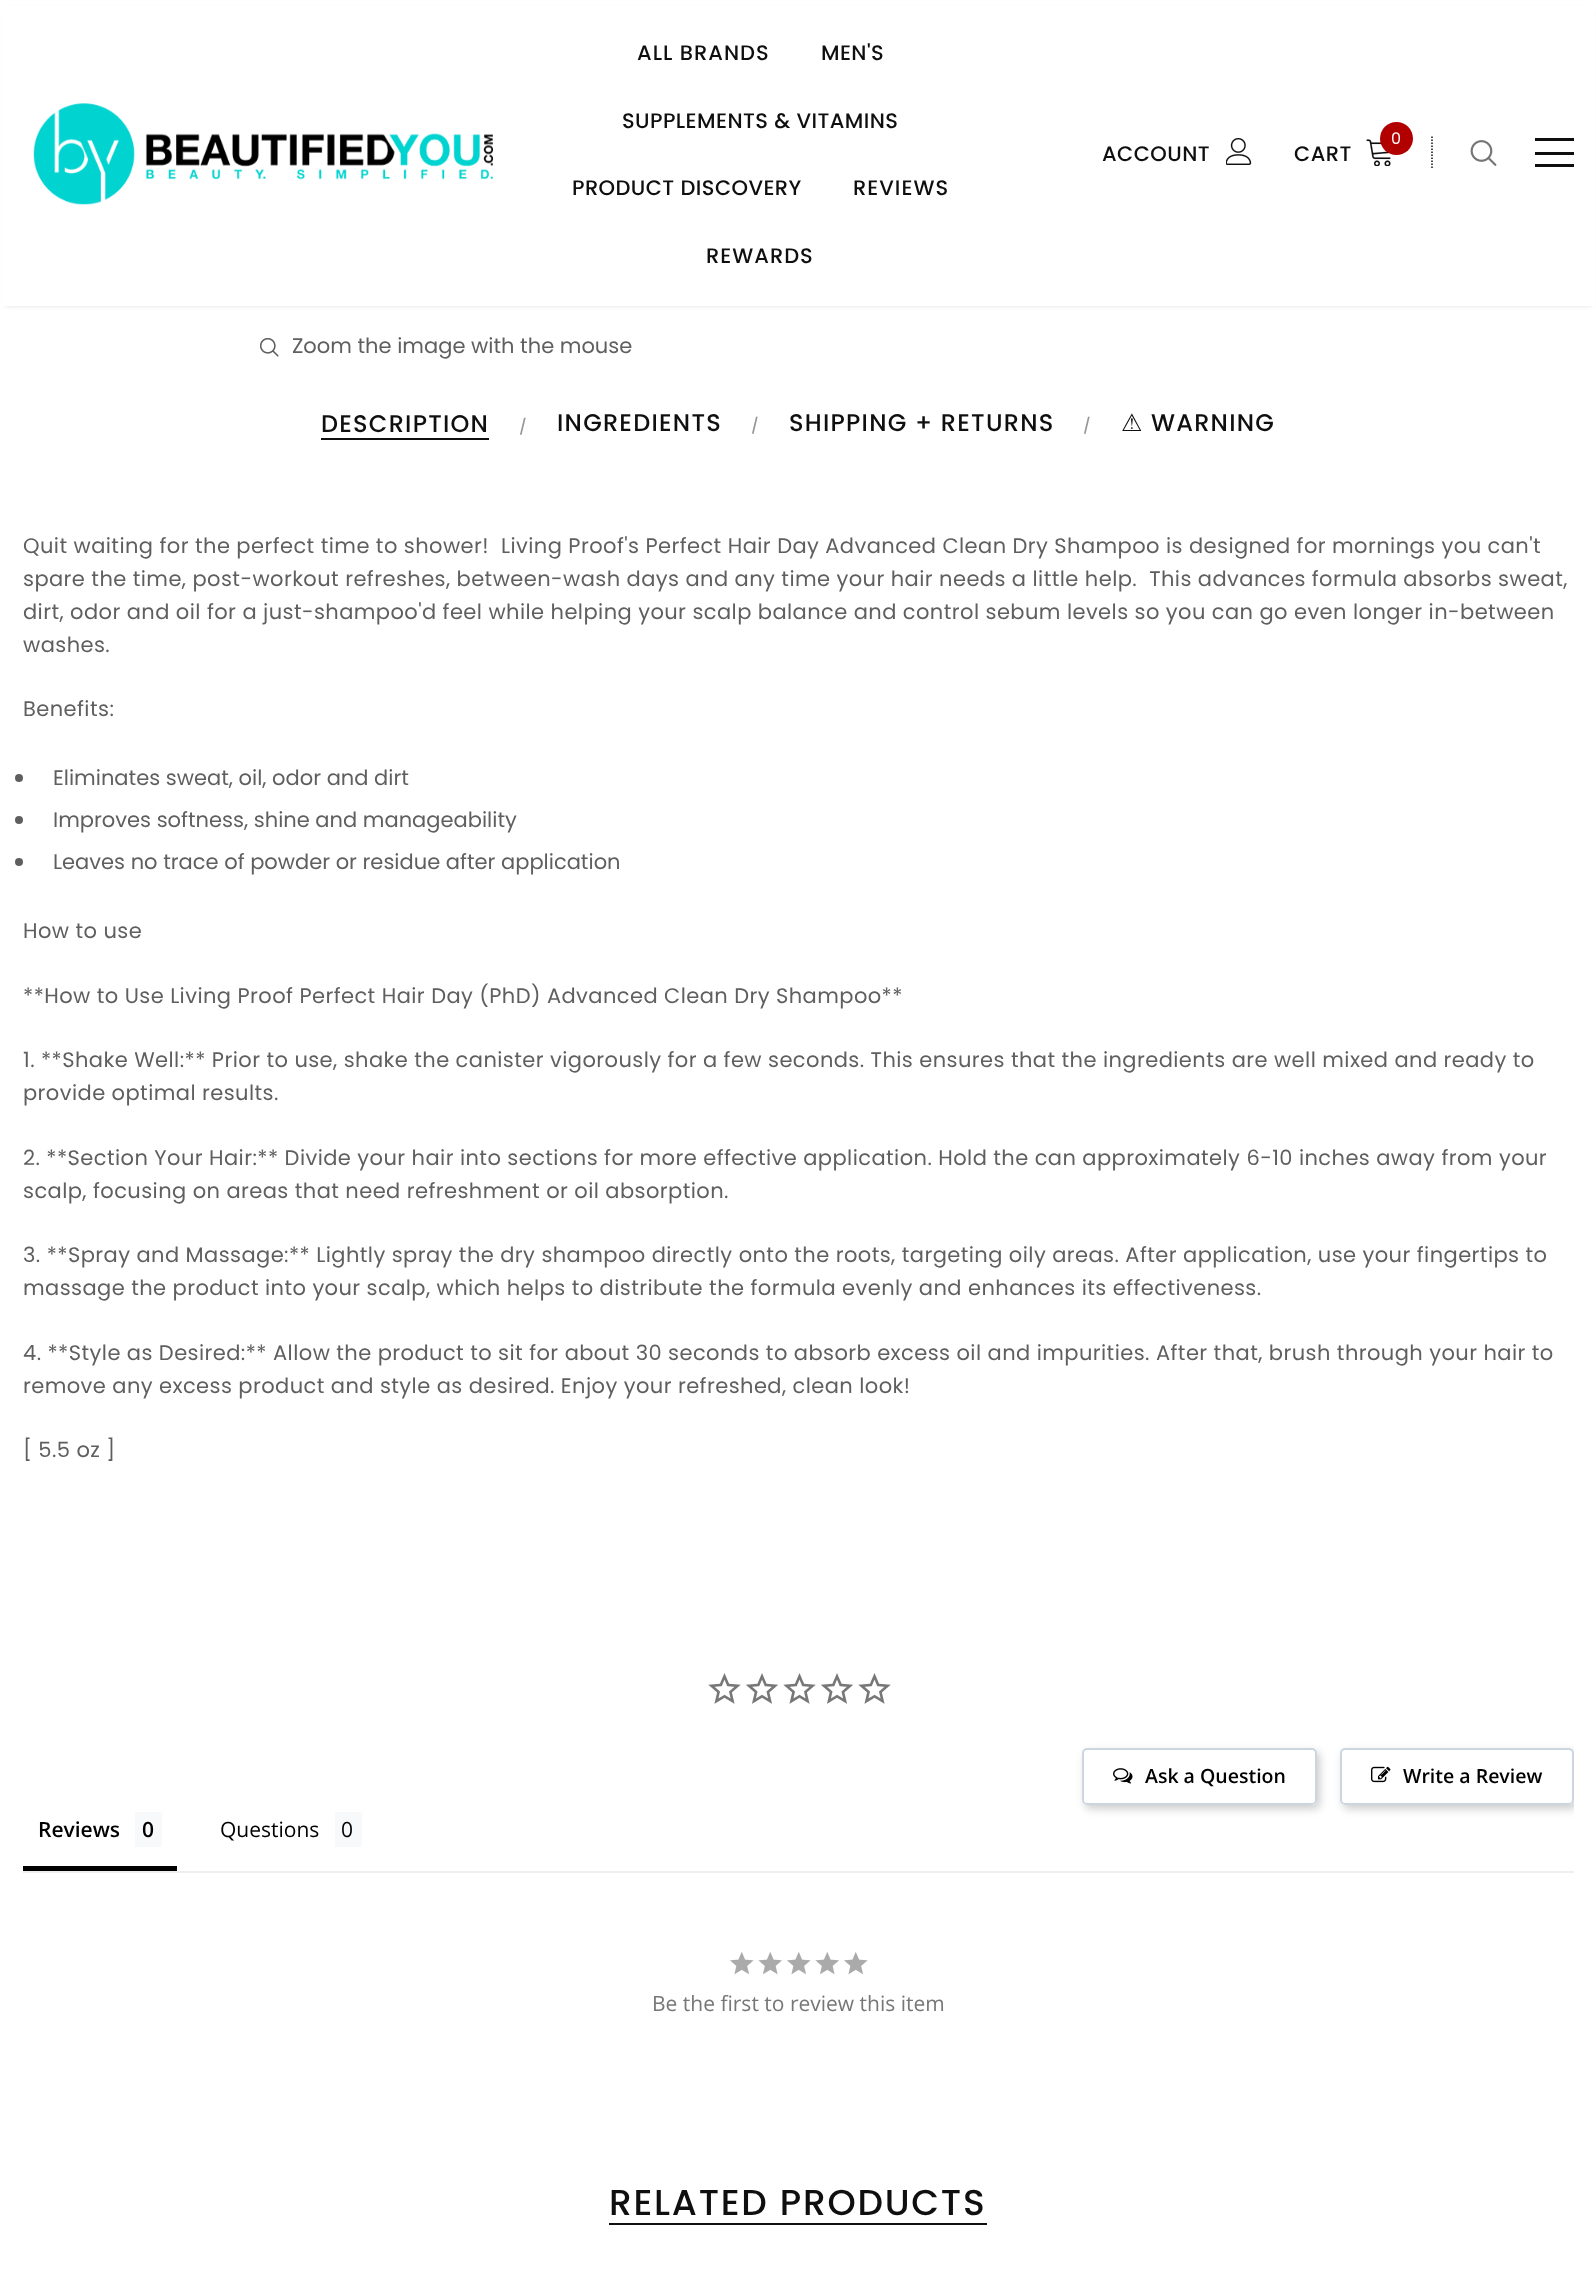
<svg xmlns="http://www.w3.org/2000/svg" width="1596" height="2291">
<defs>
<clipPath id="clip1"><path d="M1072 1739h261v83h-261zm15 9h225c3 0 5 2 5 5v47c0 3-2 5-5 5h-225c-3 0-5-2-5-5v-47c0-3 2-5 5-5z" clip-rule="evenodd"/></clipPath>
<clipPath id="clip2"><rect x="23" y="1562" width="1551" height="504"/></clipPath>
<clipPath id="clip3"><path d="M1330 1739h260v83h-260zm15 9h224c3 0 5 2 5 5v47c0 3-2 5-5 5h-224c-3 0-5-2-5-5v-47c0-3 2-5 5-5z" clip-rule="evenodd"/></clipPath>
</defs>
<rect width="100%" height="100%" fill="#fff"/>
<rect x="5" y="9" width="1587" height="297" fill="#0000001f" filter="blur(2px)"/>
<rect x="2" y="6" width="1593" height="300" fill="#fff"/>
<image x="33" y="103" width="460" height="102" href="media/1.png"/>
<text x="637" y="60" style="font-family:Poppins;font-size:21px;font-weight:500;letter-spacing:1px;fill:#0f0f0f">ALL BRANDS</text>
<text x="821" y="60" style="font-family:Poppins;font-size:21px;font-weight:500;letter-spacing:0.42px;fill:#0f0f0f">MEN'S</text>
<text x="622" y="128" style="font-family:Poppins;font-size:21px;font-weight:500;letter-spacing:0.42px;fill:#0f0f0f">SUPPLEMENTS &amp; VITAMINS</text>
<text x="572" y="195" style="font-family:Poppins;font-size:21px;font-weight:500;letter-spacing:0.42px;fill:#0f0f0f">PRODUCT DISCOVERY</text>
<text x="853" y="195" style="font-family:Poppins;font-size:21px;font-weight:500;letter-spacing:1px;fill:#0f0f0f">REVIEWS</text>
<text x="706" y="263" style="font-family:Poppins;font-size:21px;font-weight:500;letter-spacing:1px;fill:#0f0f0f">REWARDS</text>
<text x="1102" y="161" style="font-family:Poppins;font-size:21px;font-weight:500;letter-spacing:0.42px;fill:#0f0f0f">ACCOUNT</text>
<image x="1226" y="138" width="26" height="27" href="media/2.png"/>
<image x="1366" y="139" width="25" height="27" href="media/3.png"/>
<circle cx="1396.5" cy="138.5" r="16.5" fill="#b20000"/>
<text x="1391" y="144" style="font-family:Poppins;font-size:16px;letter-spacing:0.42px;fill:#fff">0</text>
<text x="1294" y="161" style="font-family:Poppins;font-size:21px;font-weight:500;letter-spacing:0.42px;fill:#0f0f0f">CART</text>
<path d="M1432 136.5v33" fill="none" stroke="#0f0f0f" stroke-width="1.5" stroke-dasharray="1.5 1.5"/>
<image x="1470" y="140" width="27" height="26" href="media/4.png"/>
<rect x="1535" y="152" width="39" height="3" fill="#0f0f0f"/>
<rect x="1535" y="138" width="39" height="3" fill="#0f0f0f"/>
<rect x="1535" y="164" width="39" height="3" fill="#0f0f0f"/>
<image x="260" y="338" width="19" height="19" href="media/5.png"/>
<text x="292" y="353" style="font-family:Poppins;font-size:21px;fill:#5f5f5f">Zoom the image with the mouse</text>
<rect x="321" y="438" width="168" height="2" fill="#0f0f0f"/>
<text x="321" y="432" style="font-family:Poppins;font-size:24px;font-weight:500;letter-spacing:1.25px;fill:#0f0f0f">DESCRIPTION</text>
<text x="519" y="432" style="font-family:Poppins;font-size:15px;font-weight:500;fill:#969696">/</text>
<text x="557" y="431" style="font-family:Poppins;font-size:24px;font-weight:500;letter-spacing:1.25px;fill:#0f0f0f">INGREDIENTS</text>
<text x="751" y="431" style="font-family:Poppins;font-size:15px;font-weight:500;fill:#969696">/</text>
<text x="789" y="431" style="font-family:Poppins;font-size:24px;font-weight:500;letter-spacing:1.25px;fill:#0f0f0f">SHIPPING + RETURNS</text>
<text x="1083" y="431" style="font-family:Poppins;font-size:15px;font-weight:500;fill:#969696">/</text>
<text x="1121" y="431" style="font-family:DejaVu Sans;font-size:24px;letter-spacing:1.25px;fill:#0f0f0f">⚠</text>
<text x="1151" y="431" style="font-family:Poppins;font-size:24px;font-weight:500;letter-spacing:1.25px;fill:#0f0f0f">WARNING</text>
<text x="23" y="553" style="font-family:Poppins;font-size:21px;letter-spacing:0.42px;fill:#5f5f5f" xml:space="preserve">Quit waiting for the perfect time to shower!  Living Proof's Perfect Hair Day Advanced Clean Dry Shampoo is designed for mornings you can't</text>
<text x="23" y="586" style="font-family:Poppins;font-size:21px;letter-spacing:0.42px;fill:#5f5f5f" xml:space="preserve">spare the time, post-workout refreshes, between-wash days and any time your hair needs a little help.  This advances formula absorbs sweat,</text>
<text x="23" y="619" style="font-family:Poppins;font-size:21px;letter-spacing:0.42px;fill:#5f5f5f">dirt, odor and oil for a just-shampoo'd feel while helping your scalp balance and control sebum levels so you can go even longer in-between</text>
<text x="23" y="652" style="font-family:Poppins;font-size:21px;letter-spacing:0.42px;fill:#5f5f5f">washes.</text>
<text x="23" y="716" style="font-family:Poppins;font-size:21px;letter-spacing:0.42px;fill:#5f5f5f">Benefits:</text>
<circle cx="19" cy="778" r="4" fill="#5f5f5f"/>
<text x="53" y="785" style="font-family:Poppins;font-size:21px;fill:#5f5f5f">Eliminates sweat, oil, odor and dirt</text>
<circle cx="19" cy="820" r="4" fill="#5f5f5f"/>
<text x="53" y="827" style="font-family:Poppins;font-size:21px;fill:#5f5f5f">Improves softness, shine and manageability</text>
<circle cx="19" cy="862" r="4" fill="#5f5f5f"/>
<text x="53" y="869" style="font-family:Poppins;font-size:21px;fill:#5f5f5f">Leaves no trace of powder or residue after application</text>
<text x="23" y="938" style="font-family:Poppins;font-size:21px;letter-spacing:0.42px;fill:#5f5f5f">How to use</text>
<text x="23" y="1003" style="font-family:Poppins;font-size:21px;letter-spacing:0.42px;fill:#5f5f5f">**How to Use Living Proof Perfect Hair Day (PhD) Advanced Clean Dry Shampoo**</text>
<text x="23" y="1067" style="font-family:Poppins;font-size:21px;letter-spacing:0.42px;fill:#5f5f5f">1. **Shake Well:** Prior to use, shake the canister vigorously for a few seconds. This ensures that the ingredients are well mixed and ready to</text>
<text x="23" y="1100" style="font-family:Poppins;font-size:21px;letter-spacing:0.42px;fill:#5f5f5f">provide optimal results.</text>
<text x="23" y="1165" style="font-family:Poppins;font-size:21px;letter-spacing:0.42px;fill:#5f5f5f">2. **Section Your Hair:** Divide your hair into sections for more effective application. Hold the can approximately 6-10 inches away from your</text>
<text x="23" y="1198" style="font-family:Poppins;font-size:21px;letter-spacing:0.42px;fill:#5f5f5f">scalp, focusing on areas that need refreshment or oil absorption.</text>
<text x="23" y="1262" style="font-family:Poppins;font-size:21px;letter-spacing:0.42px;fill:#5f5f5f">3. **Spray and Massage:** Lightly spray the dry shampoo directly onto the roots, targeting oily areas. After application, use your fingertips to</text>
<text x="23" y="1295" style="font-family:Poppins;font-size:21px;letter-spacing:0.42px;fill:#5f5f5f">massage the product into your scalp, which helps to distribute the formula evenly and enhances its effectiveness.</text>
<text x="23" y="1360" style="font-family:Poppins;font-size:21px;letter-spacing:0.42px;fill:#5f5f5f">4. **Style as Desired:** Allow the product to sit for about 30 seconds to absorb excess oil and impurities. After that, brush through your hair to</text>
<text x="23" y="1393" style="font-family:Poppins;font-size:21px;letter-spacing:0.42px;fill:#5f5f5f">remove any excess product and style as desired. Enjoy your refreshed, clean look!</text>
<text x="23" y="1457" style="font-family:Poppins;font-size:21px;letter-spacing:0.42px;fill:#5f5f5f">[ 5.5 oz ]</text>
<image x="708" y="1673" width="33" height="31" href="media/6.png"/>
<image x="746" y="1673" width="32" height="31" href="media/7.png"/>
<image x="783" y="1673" width="33" height="31" href="media/6.png"/>
<image x="821" y="1673" width="32" height="31" href="media/7.png"/>
<image x="858" y="1673" width="33" height="31" href="media/6.png"/>
<g clip-path="url(#clip1)">
<rect x="1085" y="1752" width="235" height="57" rx="5" fill="#8888886b" filter="blur(4px)"/>
</g>
<rect x="1083" y="1749" width="233" height="55" rx="4" fill="none" stroke="#ccd6e0" stroke-width="2"/>
<image x="1113" y="1768" width="20" height="16" href="media/8.png"/>
<text x="1145" y="1783" style="font-family:Open Sans;font-size:19.5px;font-weight:600;fill:#000">Ask a Question</text>
<g clip-path="url(#clip2)">
<g clip-path="url(#clip3)">
<rect x="1343" y="1752" width="234" height="57" rx="5" fill="#8888886b" filter="blur(4px)"/>
</g>
</g>
<rect x="1341" y="1749" width="232" height="55" rx="4" fill="none" stroke="#ccd6e0" stroke-width="2"/>
<image x="1371" y="1766" width="20" height="17" href="media/9.png"/>
<text x="1403" y="1783" style="font-family:Open Sans;font-size:19.5px;font-weight:600;fill:#000">Write a Review</text>
<rect x="23" y="1871" width="1551" height="2" fill="#eee"/>
<rect x="23" y="1866" width="154" height="5" fill="#000"/>
<text x="38" y="1837" style="font-family:Open Sans;font-size:21px;font-weight:600;fill:#000">Reviews</text>
<rect x="135" y="1812" width="27" height="35" fill="#f8f9fa"/>
<text x="142" y="1837" style="font-family:Open Sans;font-size:21px;font-weight:600;fill:#000">0</text>
<text x="220" y="1837" style="font-family:Open Sans;font-size:21px;fill:#000">Questions</text>
<rect x="335" y="1812" width="27" height="35" fill="#f8f9fa"/>
<text x="341" y="1837" style="font-family:Open Sans;font-size:21px;fill:#000">0</text>
<image x="730" y="1952" width="138" height="23" href="media/10.png"/>
<text x="652" y="2011" style="font-family:Open Sans;font-size:21px;fill:#777">Be the first to review this item</text>
<rect x="609" y="2223" width="378" height="2" fill="#0f0f0f"/>
<text x="609" y="2215" style="font-family:Poppins;font-size:36px;font-weight:500;letter-spacing:1.75px;fill:#0f0f0f">RELATED PRODUCTS</text>
</svg>
